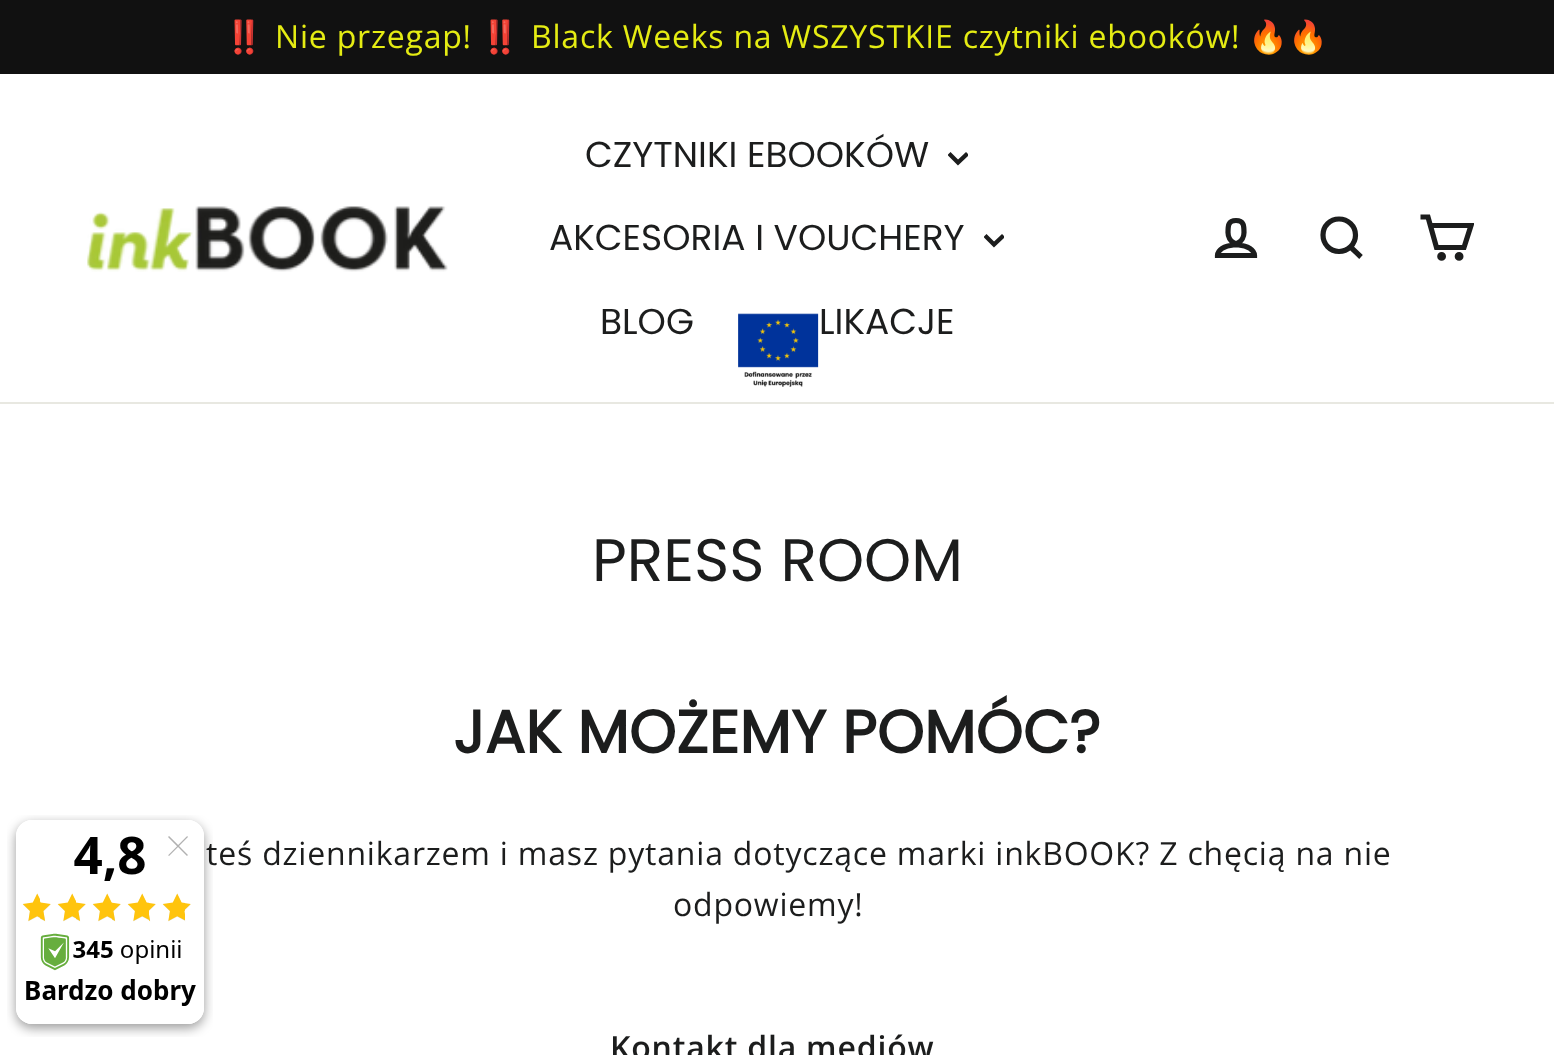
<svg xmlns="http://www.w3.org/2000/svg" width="1554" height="1055">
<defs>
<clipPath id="clip1"><rect x="948" y="148" width="20" height="20"/></clipPath>
<clipPath id="clip2"><rect x="984" y="230" width="20" height="20"/></clipPath>
<clipPath id="clip3"><rect x="1418" y="210" width="56" height="56"/></clipPath>
</defs>
<rect width="100%" height="100%" fill="#fff"/>
<text x="206" y="865" style="font-family:Open Sans;font-size:32px;letter-spacing:0.8px;fill:#1c1d1d">teś dziennikarzem i masz pytania dotyczące marki inkBOOK? Z chęcią na nie</text>
<image x="7" y="815" width="206" height="222" href="media/1.png"/>
<rect width="1554" height="74" fill="#111"/>
<text x="224" y="48" style="font-family:Noto Color Emoji;font-size:32px;letter-spacing:0.8px;fill:#e5ec13">‼️</text>
<text x="275" y="48" style="font-family:Open Sans;font-size:32px;letter-spacing:0.8px;fill:#e5ec13">Nie przegap!</text>
<text x="480" y="48" style="font-family:Noto Color Emoji;font-size:32px;letter-spacing:0.8px;fill:#e5ec13">‼️</text>
<text x="531" y="48" style="font-family:Open Sans;font-size:32px;letter-spacing:0.8px;fill:#e5ec13">Black Weeks na WSZYSTKIE czytniki ebooków!</text>
<text x="1248" y="48" style="font-family:Noto Color Emoji;font-size:32px;letter-spacing:0.8px;fill:#e5ec13">🔥🔥</text>
<rect y="402" width="1554" height="2" fill="#e8e8e1"/>
<image x="87" y="206" width="361" height="66" href="media/2.png"/>
<text x="585" y="167" style="font-family:Poppins;font-size:36px;fill:#1c1d1d">CZYTNIKI EBOOKÓW</text>
<g clip-path="url(#clip1)">
<path d="M949 153.5l9 9l9.5-9" fill="none" stroke="#1c1d1d" stroke-width="4.3"/>
</g>
<text x="549" y="250" style="font-family:Poppins;font-size:36px;fill:#1c1d1d">AKCESORIA I VOUCHERY</text>
<g clip-path="url(#clip2)">
<path d="M985 235.5l9 9l9.5-9" fill="none" stroke="#1c1d1d" stroke-width="4.3"/>
</g>
<text x="600" y="334" style="font-family:Poppins;font-size:36px;fill:#1c1d1d">BLOG</text>
<text x="819" y="334" style="font-family:Poppins;font-size:36px;fill:#1c1d1d">LIKACJE</text>
<path d="M1238.5 245v-2.5c3-1.5 5.5-5.5 5.5-10c0-6.5 0-12-8-12c-8 0-8 5.5-8 12c0 4.5 2.5 8.5 5.5 10v2.5c-9 .5-16 5-16 10.5h37c0-5.5-7-10-16-10.5z" fill="none" stroke="#1c1d1d" stroke-width="5.2"/>
<path d="M1355.5 235c0 9-7.5 16.5-16.5 16.5c-9 0-16-7.5-16-16.5c0-9 7-16 16-16c9 0 16.5 7 16.5 16zm5.5 22l-10.5-10" fill="none" stroke="#1c1d1d" stroke-width="5.2"/>
<g clip-path="url(#clip3)">
<path d="M1430 225.5h41l-7 22h-27.5l-8.5-30.5h-7.5" fill="none" stroke="#1c1d1d" stroke-width="5.2"/>
</g>
<circle cx="1441.6" cy="256.4" r="1.8" fill="#1c1d1d" stroke="#1c1d1d" stroke-width="5.2"/>
<circle cx="1459.1" cy="256.4" r="1.8" fill="#1c1d1d" stroke="#1c1d1d" stroke-width="5.2"/>
<image x="738" y="313" width="81" height="74" href="media/3.png"/>
<text x="592" y="581" style="font-family:Poppins;font-size:60px;fill:#1c1d1d">PRESS ROOM</text>
<text x="453" y="753" style="font-family:Poppins;font-size:60px;font-weight:bold;fill:#1c1d1d">JAK MOŻEMY POMÓC?</text>
<text x="673" y="916" style="font-family:Open Sans;font-size:32px;letter-spacing:0.8px;fill:#1c1d1d">odpowiemy!</text>
<text x="610" y="1059" style="font-family:Open Sans;font-size:32px;font-weight:600;letter-spacing:0.8px;fill:#1c1d1d">Kontakt dla mediów</text>
</svg>
